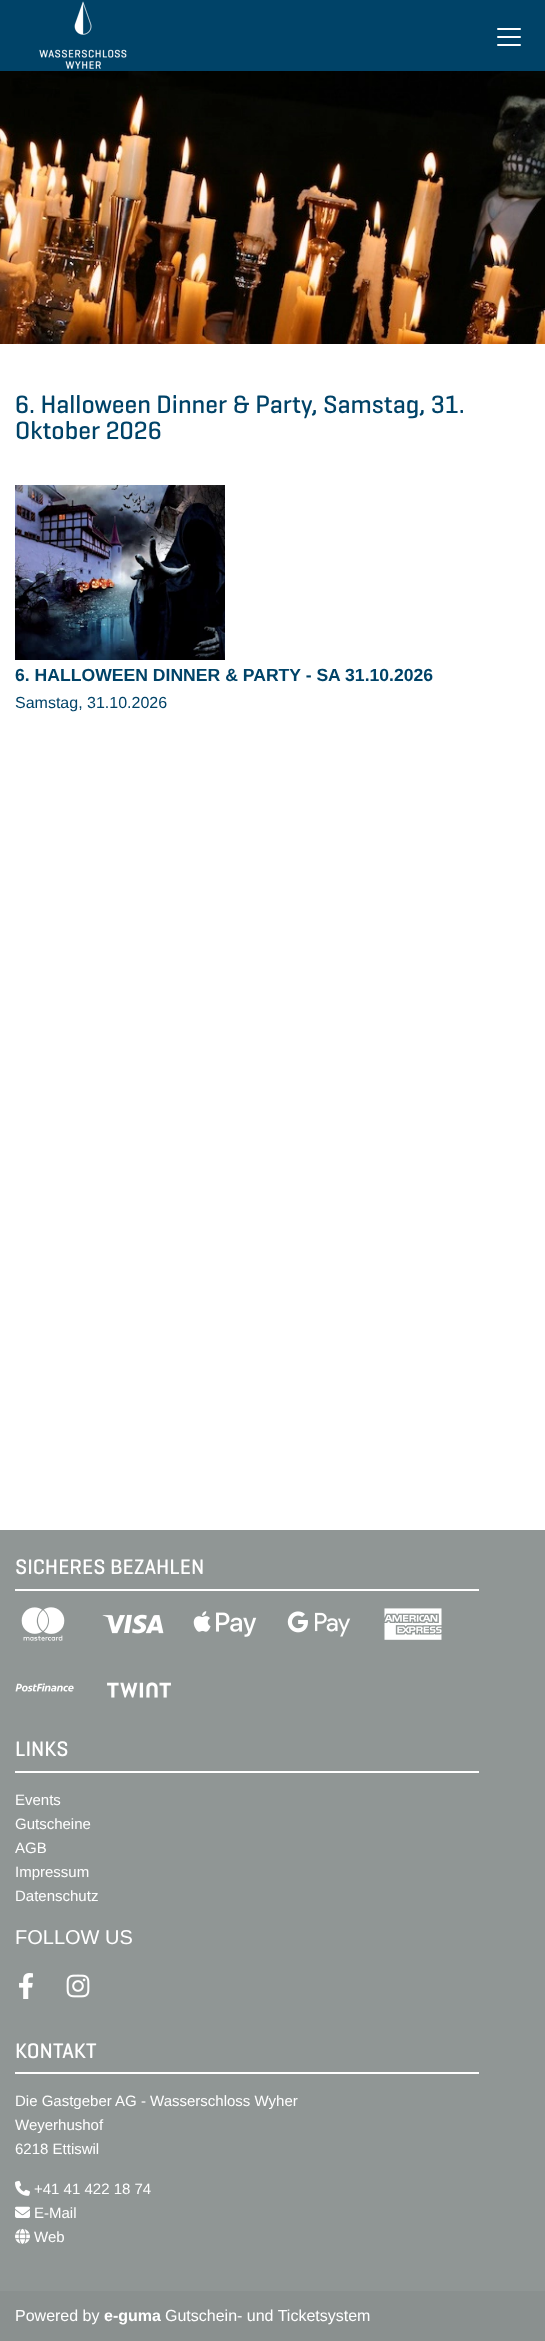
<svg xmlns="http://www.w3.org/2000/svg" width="545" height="2341">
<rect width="100%" height="100%" fill="#fff"/>
<rect width="545" height="71" fill="#004368"/>
<image x="39" y="1" width="88" height="68" href="media/1.png"/>
<rect x="497" y="28" width="24" height="2" rx="1" fill="#fff"/>
<rect x="497" y="36" width="24" height="2" rx="1" fill="#fff"/>
<rect x="497" y="44" width="24" height="2" rx="1" fill="#fff"/>
<image x="0" y="71" width="545" height="273" href="media/2.png"/>
<text x="15" y="413" style="font-family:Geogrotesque;font-size:25.6px;font-weight:500;fill:#004368">6. Halloween Dinner &amp; Party, Samstag, 31.</text>
<text x="15" y="439" style="font-family:Geogrotesque;font-size:25.6px;font-weight:500;fill:#004368">Oktober 2026</text>
<image x="15" y="485" width="210" height="175" href="media/3.png"/>
<text x="15" y="681" style="font-family:Liberation Sans;font-size:17.6px;font-weight:bold;fill:#004368">6. HALLOWEEN DINNER &amp; PARTY - SA 31.10.2026</text>
<text x="15" y="708" style="font-family:Liberation Sans;font-size:16px;fill:#004368">Samstag, 31.10.2026</text>
<rect y="1530" width="545" height="761" fill="#909695"/>
<text x="15" y="1574" style="font-family:Geogrotesque;font-size:21.5px;font-weight:500;fill:#fff">SICHERES BEZAHLEN</text>
<rect x="15" y="1589" width="464" height="2" fill="#fff"/>
<image x="21" y="1607" width="44" height="34" href="media/4.png"/>
<image x="102" y="1614" width="62" height="20" href="media/5.png"/>
<image x="193" y="1611" width="64" height="26" href="media/6.png"/>
<image x="287" y="1611" width="64" height="26" href="media/7.png"/>
<image x="384" y="1608" width="58" height="32" href="media/8.png"/>
<image x="15" y="1683" width="59" height="9" href="media/9.png"/>
<image x="107" y="1682" width="64" height="16" href="media/10.png"/>
<text x="15" y="1756" style="font-family:Geogrotesque;font-size:21.5px;font-weight:500;fill:#fff">LINKS</text>
<rect x="15" y="1771" width="464" height="2" fill="#fff"/>
<text x="15" y="1805" style="font-family:Liberation Sans;font-size:15px;fill:#fff">Events</text>
<text x="15" y="1829" style="font-family:Liberation Sans;font-size:15px;fill:#fff">Gutscheine</text>
<text x="15" y="1853" style="font-family:Liberation Sans;font-size:15px;fill:#fff">AGB</text>
<text x="15" y="1877" style="font-family:Liberation Sans;font-size:15px;fill:#fff">Impressum</text>
<text x="15" y="1901" style="font-family:Liberation Sans;font-size:15px;fill:#fff">Datenschutz</text>
<text x="15" y="1944" style="font-family:Liberation Sans;font-size:20px;fill:#fff">FOLLOW US</text>
<image x="19" y="1973" width="14" height="26" href="media/11.png"/>
<image x="66" y="1974" width="24" height="24" href="media/12.png"/>
<text x="15" y="2058" style="font-family:Geogrotesque;font-size:21.5px;font-weight:500;fill:#fff">KONTAKT</text>
<rect x="15" y="2072" width="464" height="2" fill="#fff"/>
<text x="15" y="2106" style="font-family:Liberation Sans;font-size:15px;fill:#fff">Die Gastgeber AG - Wasserschloss Wyher</text>
<text x="15" y="2130" style="font-family:Liberation Sans;font-size:15px;fill:#fff">Weyerhushof</text>
<text x="15" y="2154" style="font-family:Liberation Sans;font-size:15px;fill:#fff">6218 Ettiswil</text>
<image x="15" y="2180" width="15" height="16" href="media/13.png"/>
<text x="34" y="2194" style="font-family:Liberation Sans;font-size:15px;fill:#fff">+41 41 422 18 74</text>
<image x="15" y="2206" width="15" height="12" href="media/14.png"/>
<text x="34" y="2218" style="font-family:Liberation Sans;font-size:15px;fill:#fff">E-Mail</text>
<image x="15" y="2228" width="15" height="16" href="media/15.png"/>
<text x="34" y="2242" style="font-family:Liberation Sans;font-size:15px;fill:#fff">Web</text>
<rect y="2291" width="545" height="50" fill="#8a908f"/>
<text x="15" y="2321" style="font-family:Liberation Sans;font-size:16px;fill:#fff">Powered by</text>
<text x="104" y="2321" style="font-family:Liberation Sans;font-size:16px;font-weight:bold;fill:#fff">e-guma</text>
<text x="165" y="2321" style="font-family:Liberation Sans;font-size:16px;fill:#fff">Gutschein- und Ticketsystem</text>
</svg>
